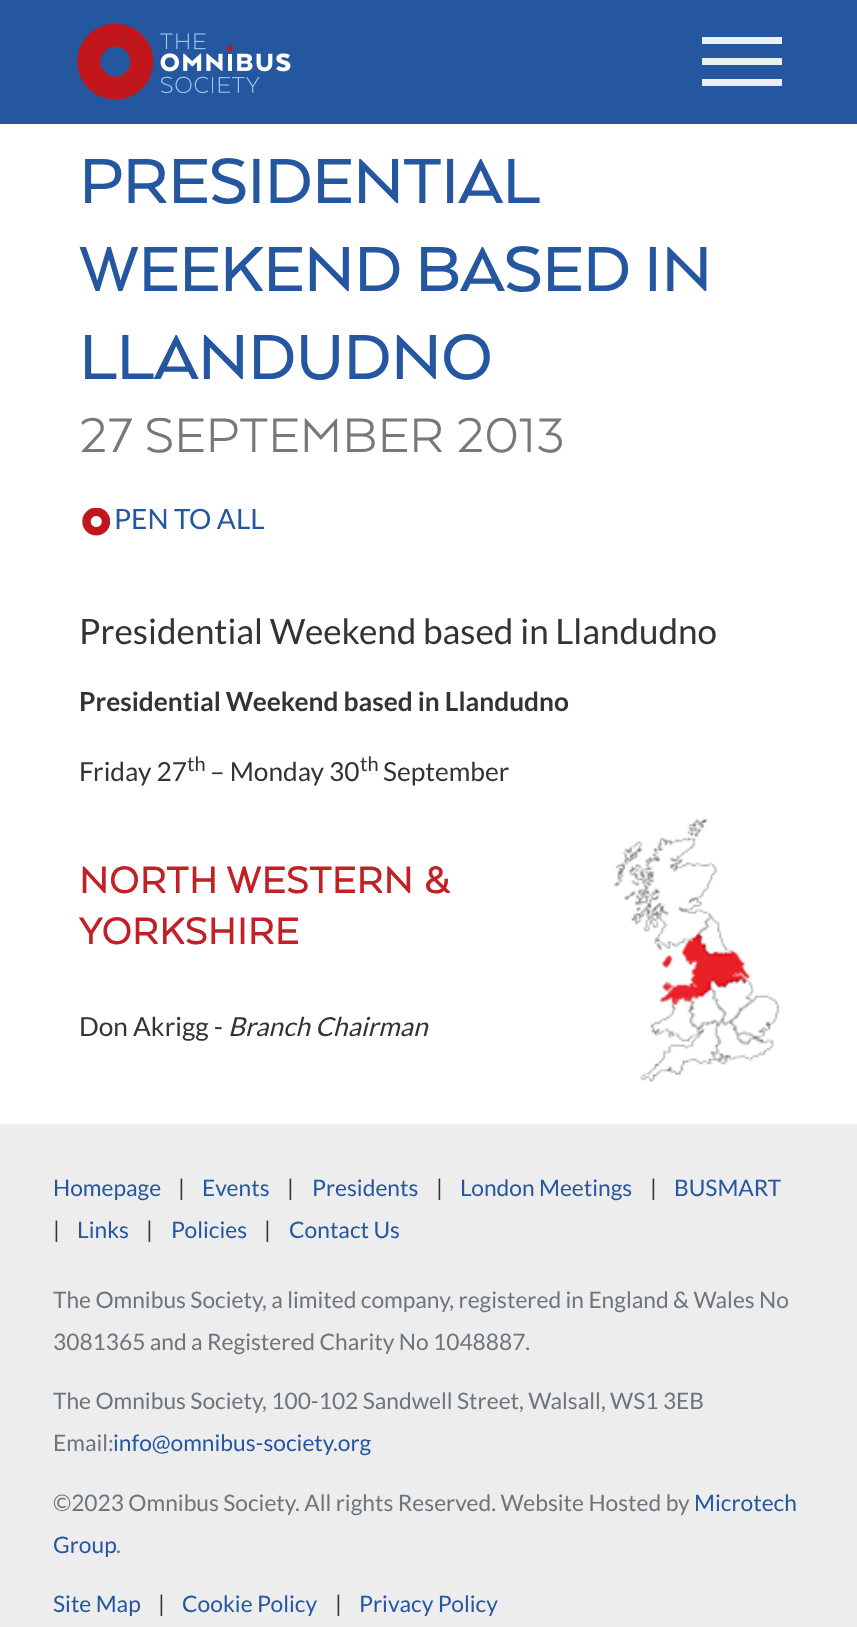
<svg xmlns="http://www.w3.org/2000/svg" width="857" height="1627">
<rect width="100%" height="100%" fill="#fff"/>
<rect width="857" height="124" fill="#2556a0"/>
<image x="77" y="23" width="214" height="77" href="media/1.png"/>
<rect x="702" y="37" width="80" height="7" fill="#ecf0f1"/>
<rect x="702" y="58" width="80" height="7" fill="#ecf0f1"/>
<rect x="702" y="79" width="80" height="7" fill="#ecf0f1"/>
<text x="79" y="203" style="font-family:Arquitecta;font-size:73.5px;font-weight:500;letter-spacing:-0.9px;fill:#2556a0">PRESIDENTIAL</text>
<text x="79" y="291" style="font-family:Arquitecta;font-size:73.5px;font-weight:500;letter-spacing:-0.9px;fill:#2556a0">WEEKEND BASED IN</text>
<text x="79" y="379" style="font-family:Arquitecta;font-size:73.5px;font-weight:500;letter-spacing:-0.9px;fill:#2556a0">LLANDUDNO</text>
<text x="79" y="452" style="font-family:Arquitecta;font-size:56px;fill:#787878">27 SEPTEMBER 2013</text>
<image x="82" y="508" width="28" height="28" href="media/2.png"/>
<text x="114" y="529" style="font-family:Lato;font-size:28px;fill:#2556a0">PEN TO ALL</text>
<text x="79" y="644" style="font-family:Lato;font-size:35px;fill:#333">Presidential Weekend based in Llandudno</text>
<text x="79" y="711" style="font-family:Lato;font-size:26.25px;font-weight:bold;fill:#333">Presidential Weekend based in Llandudno</text>
<text x="79" y="781" style="font-family:Lato;font-size:26.25px;fill:#333">Friday 27</text>
<text x="187" y="771" style="font-family:Lato;font-size:20px;fill:#333">th</text>
<text x="210" y="781" style="font-family:Lato;font-size:26.25px;fill:#333">– Monday 30</text>
<text x="360" y="771" style="font-family:Lato;font-size:20px;fill:#333">th</text>
<text x="383" y="781" style="font-family:Lato;font-size:26.25px;fill:#333">September</text>
<text x="79" y="893" style="font-family:Arquitecta;font-size:42px;font-weight:bold;letter-spacing:0.9px;fill:#c12026">NORTH WESTERN &amp;</text>
<text x="79" y="944" style="font-family:Arquitecta;font-size:42px;font-weight:bold;letter-spacing:0.9px;fill:#c12026">YORKSHIRE</text>
<text x="79" y="1036" style="font-family:Lato;font-size:26.25px;fill:#333">Don Akrigg -</text>
<text x="228" y="1036" style="font-family:Lato;font-size:26.25px;font-style:italic;fill:#333">Branch Chairman</text>
<image x="613" y="819" width="166" height="263" href="media/3.png"/>
<rect y="1124" width="857" height="503" fill="#ededed"/>
<text x="53" y="1196" style="font-family:Lato;font-size:22.75px;fill:#2556a0">Homepage</text>
<text x="178" y="1196" style="font-family:Lato;font-size:22.75px;fill:#333">|</text>
<text x="202" y="1196" style="font-family:Lato;font-size:22.75px;fill:#2556a0">Events</text>
<text x="287" y="1196" style="font-family:Lato;font-size:22.75px;fill:#333">|</text>
<text x="312" y="1196" style="font-family:Lato;font-size:22.75px;fill:#2556a0">Presidents</text>
<text x="436" y="1196" style="font-family:Lato;font-size:22.75px;fill:#333">|</text>
<text x="460" y="1196" style="font-family:Lato;font-size:22.75px;fill:#2556a0">London Meetings</text>
<text x="650" y="1196" style="font-family:Lato;font-size:22.75px;fill:#333">|</text>
<text x="674" y="1196" style="font-family:Lato;font-size:22.75px;fill:#2556a0">BUSMART</text>
<text x="53" y="1238" style="font-family:Lato;font-size:22.75px;fill:#333">|</text>
<text x="77" y="1238" style="font-family:Lato;font-size:22.75px;fill:#2556a0">Links</text>
<text x="146" y="1238" style="font-family:Lato;font-size:22.75px;fill:#333">|</text>
<text x="171" y="1238" style="font-family:Lato;font-size:22.75px;fill:#2556a0">Policies</text>
<text x="264" y="1238" style="font-family:Lato;font-size:22.75px;fill:#333">|</text>
<text x="289" y="1238" style="font-family:Lato;font-size:22.75px;fill:#2556a0">Contact Us</text>
<text x="53" y="1308" style="font-family:Lato;font-size:22.75px;fill:#6c757d">The Omnibus Society, a limited company, registered in England &amp; Wales No</text>
<text x="53" y="1350" style="font-family:Lato;font-size:22.75px;fill:#6c757d">3081365 and a Registered Charity No 1048887.</text>
<text x="53" y="1409" style="font-family:Lato;font-size:22.75px;fill:#6c757d">The Omnibus Society, 100-102 Sandwell Street, Walsall, WS1 3EB</text>
<text x="53" y="1451" style="font-family:Lato;font-size:22.75px;fill:#6c757d">Email:</text>
<text x="113" y="1451" style="font-family:Lato;font-size:22.75px;fill:#2556a0">info@omnibus-society.org</text>
<text x="53" y="1511" style="font-family:Lato;font-size:22.75px;fill:#6c757d">©2023 Omnibus Society. All rights Reserved. Website Hosted by</text>
<text x="694" y="1511" style="font-family:Lato;font-size:22.75px;fill:#2556a0">Microtech</text>
<text x="53" y="1553" style="font-family:Lato;font-size:22.75px;fill:#2556a0">Group</text>
<text x="116" y="1553" style="font-family:Lato;font-size:22.75px;fill:#6c757d">.</text>
<text x="53" y="1612" style="font-family:Lato;font-size:22.75px;fill:#2556a0">Site Map</text>
<text x="158" y="1612" style="font-family:Lato;font-size:22.75px;fill:#333">|</text>
<text x="182" y="1612" style="font-family:Lato;font-size:22.75px;fill:#2556a0">Cookie Policy</text>
<text x="335" y="1612" style="font-family:Lato;font-size:22.75px;fill:#333">|</text>
<text x="359" y="1612" style="font-family:Lato;font-size:22.75px;fill:#2556a0">Privacy Policy</text>
</svg>
